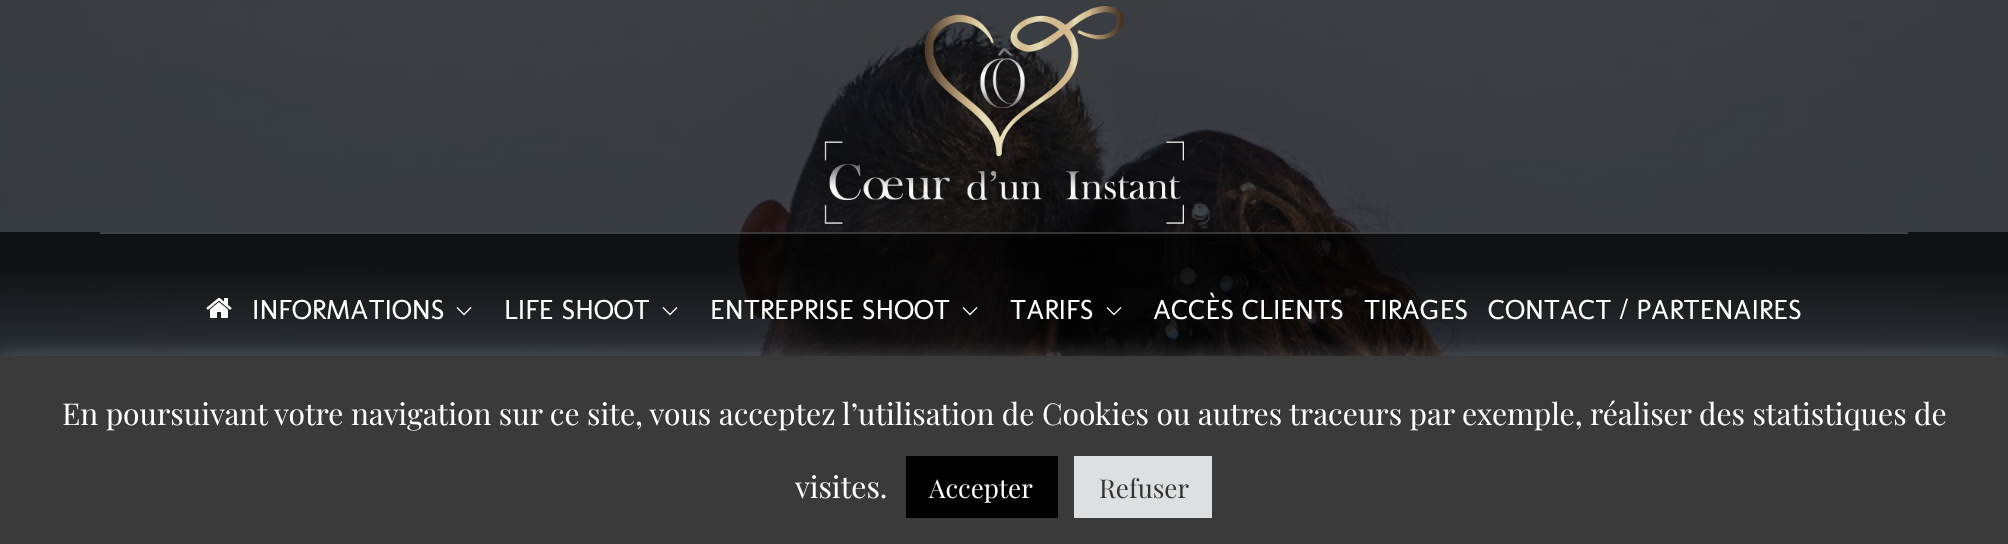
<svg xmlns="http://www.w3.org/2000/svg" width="2008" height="544">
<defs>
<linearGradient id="g1" gradientUnits="userSpaceOnUse" x1="1004" y1="0" x2="1004" y2="388"><stop offset="0.68" stop-color="#000" stop-opacity="0.7"/><stop offset="1" stop-color="#000" stop-opacity="0"/></linearGradient>
</defs>
<rect width="100%" height="100%" fill="#fff"/>
<image x="0" y="0" width="2008" height="356" href="media/1.png"/>
<rect width="2008" height="356" fill="url(#g1)"/>
<image x="824" y="6" width="360" height="218" href="media/2.png"/>
<rect y="232" width="2008" height="124" fill="#000000b3"/>
<rect x="100" y="232" width="1808" height="2" fill="#ffffff33"/>
<image x="206" y="298" width="26" height="20" href="media/3.png"/>
<text x="252" y="319" style="font-family:Molengo;font-size:28px;fill:#fff">INFORMATIONS</text>
<image x="456" y="307" width="16" height="9" href="media/4.png"/>
<text x="504" y="319" style="font-family:Molengo;font-size:28px;fill:#fff">LIFE SHOOT</text>
<image x="662" y="307" width="16" height="9" href="media/5.png"/>
<text x="710" y="319" style="font-family:Molengo;font-size:28px;fill:#fff">ENTREPRISE SHOOT</text>
<image x="962" y="307" width="16" height="9" href="media/6.png"/>
<text x="1010" y="319" style="font-family:Molengo;font-size:28px;fill:#fff">TARIFS</text>
<image x="1106" y="307" width="16" height="9" href="media/7.png"/>
<text x="1153" y="319" style="font-family:Molengo;font-size:28px;fill:#fff">ACCÈS CLIENTS</text>
<text x="1364" y="319" style="font-family:Molengo;font-size:28px;fill:#fff">TIRAGES</text>
<text x="1488" y="319" style="font-family:Molengo;font-size:28px;fill:#fff">CONTACT / PARTENAIRES</text>
<rect y="354" width="2008" height="188" fill="#acabab4d" filter="blur(10px)"/>
<rect y="356" width="2008" height="188" fill="#3a3a3a"/>
<text x="62" y="425" style="font-family:Playfair Display;font-size:30px;fill:#fff">En poursuivant votre navigation sur ce site, vous acceptez l’utilisation de Cookies ou autres traceurs par exemple, réaliser des statistiques de</text>
<text x="795" y="498" style="font-family:Playfair Display;font-size:30px;fill:#fff">visites.</text>
<rect x="906" y="456" width="152" height="62" fill="#000"/>
<text x="929" y="498" style="font-family:Playfair Display;font-size:26px;fill:#fff">Accepter</text>
<rect x="1074" y="456" width="138" height="62" fill="#dedfe0"/>
<text x="1099" y="498" style="font-family:Playfair Display;font-size:26px;fill:#333">Refuser</text>
</svg>
